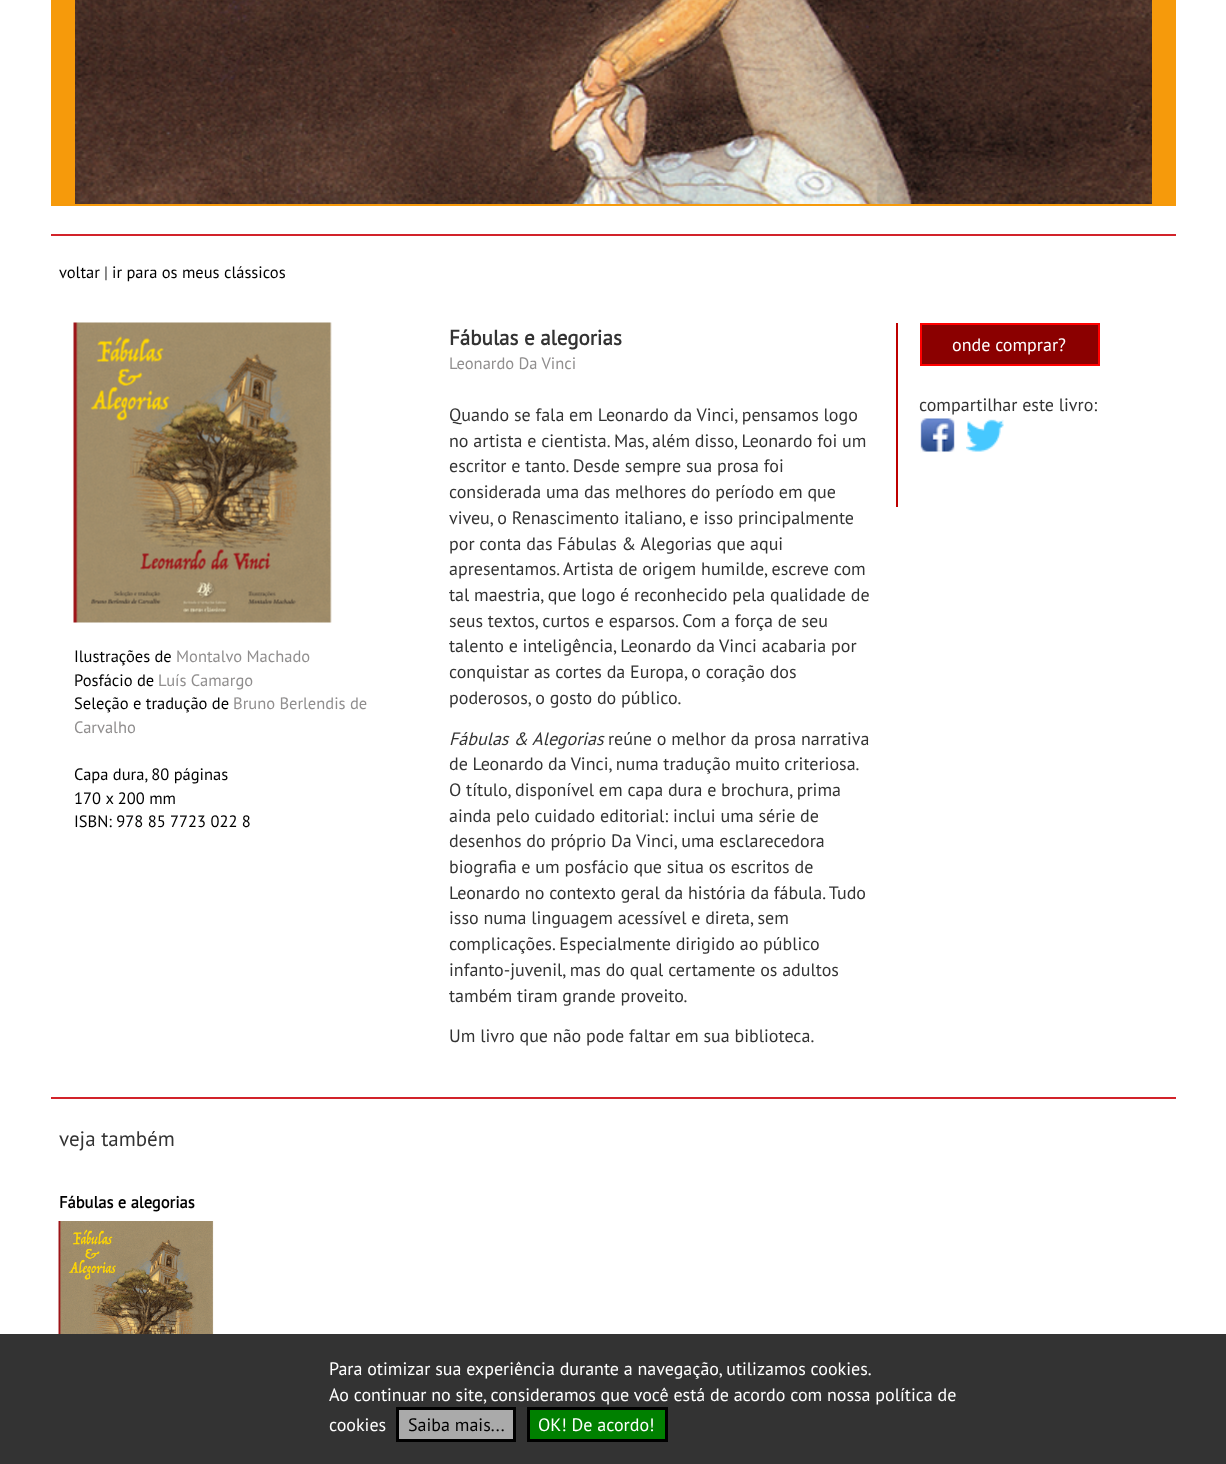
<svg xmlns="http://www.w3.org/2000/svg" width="1226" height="1464">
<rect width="100%" height="100%" fill="#fff"/>
<rect x="51" width="1125" height="206" fill="#f69a0b"/>
<image x="75" y="0" width="1077" height="204" href="media/1.png"/>
<rect x="51" y="234" width="1125" height="2" fill="#d2232a"/>
<text x="59" y="278" style="font-family:PT Sans;font-size:16.5px;fill:#000">voltar</text>
<text x="104" y="278" style="font-family:PT Sans;font-size:16.5px;fill:#333">|</text>
<text x="112" y="278" style="font-family:PT Sans;font-size:16.5px;fill:#000">ir para os meus clássicos</text>
<text x="449" y="345" style="font-family:PT Sans;font-size:21px;font-weight:bold;fill:#333">Fábulas e alegorias</text>
<text x="449" y="369" style="font-family:PT Sans;font-size:16.5px;fill:#908e8e">Leonardo Da Vinci</text>
<text x="449" y="421" style="font-family:PT Sans;font-size:18px;fill:#333">Quando se fala em Leonardo da Vinci, pensamos logo</text>
<text x="449" y="447" style="font-family:PT Sans;font-size:18px;fill:#333">no artista e cientista. Mas, além disso, Leonardo foi um</text>
<text x="449" y="472" style="font-family:PT Sans;font-size:18px;fill:#333">escritor e tanto. Desde sempre sua prosa foi</text>
<text x="449" y="498" style="font-family:PT Sans;font-size:18px;fill:#333">considerada uma das melhores do período em que</text>
<text x="449" y="524" style="font-family:PT Sans;font-size:18px;fill:#333">viveu, o Renascimento italiano, e isso principalmente</text>
<text x="449" y="550" style="font-family:PT Sans;font-size:18px;fill:#333">por conta das Fábulas &amp; Alegorias que aqui</text>
<text x="449" y="575" style="font-family:PT Sans;font-size:18px;fill:#333">apresentamos. Artista de origem humilde, escreve com</text>
<text x="449" y="601" style="font-family:PT Sans;font-size:18px;fill:#333">tal maestria, que logo é reconhecido pela qualidade de</text>
<text x="449" y="627" style="font-family:PT Sans;font-size:18px;fill:#333">seus textos, curtos e esparsos. Com a força de seu</text>
<text x="449" y="652" style="font-family:PT Sans;font-size:18px;fill:#333">talento e inteligência, Leonardo da Vinci acabaria por</text>
<text x="449" y="678" style="font-family:PT Sans;font-size:18px;fill:#333">conquistar as cortes da Europa, o coração dos</text>
<text x="449" y="704" style="font-family:PT Sans;font-size:18px;fill:#333">poderosos, o gosto do público.</text>
<text x="449" y="745" style="font-family:PT Sans;font-size:18px;font-style:italic;fill:#333">Fábulas &amp; Alegorias</text>
<text x="608" y="745" style="font-family:PT Sans;font-size:18px;fill:#333">reúne o melhor da prosa narrativa</text>
<text x="449" y="770" word-spacing="-0.25" style="font-family:PT Sans;font-size:18px;fill:#333">de Leonardo da Vinci, numa tradução muito criteriosa.</text>
<text x="449" y="796" style="font-family:PT Sans;font-size:18px;fill:#333">O título, disponível em capa dura e brochura, prima</text>
<text x="449" y="822" style="font-family:PT Sans;font-size:18px;fill:#333">ainda pelo cuidado editorial: inclui uma série de</text>
<text x="449" y="847" style="font-family:PT Sans;font-size:18px;fill:#333">desenhos do próprio Da Vinci, uma esclarecedora</text>
<text x="449" y="873" style="font-family:PT Sans;font-size:18px;fill:#333">biografia e um posfácio que situa os escritos de</text>
<text x="449" y="899" style="font-family:PT Sans;font-size:18px;fill:#333">Leonardo no contexto geral da história da fábula. Tudo</text>
<text x="449" y="924" style="font-family:PT Sans;font-size:18px;fill:#333">isso numa linguagem acessível e direta, sem</text>
<text x="449" y="950" style="font-family:PT Sans;font-size:18px;fill:#333">complicações. Especialmente dirigido ao público</text>
<text x="449" y="976" style="font-family:PT Sans;font-size:18px;fill:#333">infanto-juvenil, mas do qual certamente os adultos</text>
<text x="449" y="1002" style="font-family:PT Sans;font-size:18px;fill:#333">também tiram grande proveito.</text>
<text x="449" y="1042" style="font-family:PT Sans;font-size:18px;fill:#333">Um livro que não pode faltar em sua biblioteca.</text>
<rect x="896" y="323" width="2" height="184" fill="#be0000"/>
<rect x="921" y="324" width="178" height="41" fill="#8b0000" stroke="#f00" stroke-width="2"/>
<text x="952" y="351" style="font-family:PT Sans;font-size:18px;fill:#fff">onde comprar?</text>
<text x="919" y="411" style="font-family:PT Sans;font-size:18px;fill:#333">compartilhar este livro:</text>
<image x="920" y="418" width="35" height="35" href="media/2.png"/>
<image x="966" y="419" width="38" height="33" href="media/3.png"/>
<image x="73" y="322" width="259" height="301" href="media/4.png"/>
<text x="74" y="662" style="font-family:PT Sans;font-size:16.5px;fill:#000">Ilustrações de</text>
<text x="176" y="662" style="font-family:PT Sans;font-size:16.5px;fill:#908e8e">Montalvo Machado</text>
<text x="74" y="686" style="font-family:PT Sans;font-size:16.5px;fill:#000">Posfácio de</text>
<text x="158" y="686" style="font-family:PT Sans;font-size:16.5px;fill:#908e8e">Luís Camargo</text>
<text x="74" y="709" style="font-family:PT Sans;font-size:16.5px;fill:#000">Seleção e tradução de</text>
<text x="233" y="709" style="font-family:PT Sans;font-size:16.5px;fill:#908e8e">Bruno Berlendis de</text>
<text x="74" y="733" style="font-family:PT Sans;font-size:16.5px;fill:#908e8e">Carvalho</text>
<text x="74" y="780" style="font-family:PT Sans;font-size:16.5px;fill:#000">Capa dura, 80 páginas</text>
<text x="74" y="804" style="font-family:PT Sans;font-size:16.5px;fill:#000">170 x 200 mm</text>
<text x="74" y="827" style="font-family:PT Sans;font-size:16.5px;fill:#000">ISBN: 978 85 7723 022 8</text>
<rect x="51" y="1097" width="1125" height="2" fill="#d2232a"/>
<text x="59" y="1146" style="font-family:PT Sans;font-size:21px;fill:#333">veja também</text>
<text x="59" y="1208" style="font-family:PT Sans;font-size:16.5px;font-weight:bold;fill:#000">Fábulas e alegorias</text>
<image x="58" y="1221" width="156" height="113" href="media/5.png"/>
<rect y="1334" width="1226" height="130" fill="#333"/>
<text x="329" y="1375" style="font-family:PT Sans;font-size:18px;fill:#fff">Para otimizar sua experiência durante a navegação, utilizamos cookies.</text>
<text x="329" y="1401" style="font-family:PT Sans;font-size:18px;fill:#fff">Ao continuar no site, consideramos que você está de acordo com nossa política de</text>
<text x="329" y="1431" style="font-family:PT Sans;font-size:18px;fill:#fff">cookies</text>
<rect x="397.5" y="1408.5" width="117" height="32" fill="#aaa" stroke="#000" stroke-width="3"/>
<text x="408" y="1431" style="font-family:PT Sans;font-size:18px;fill:#000">Saiba mais...</text>
<rect x="528.5" y="1408.5" width="138" height="32" fill="#008000" stroke="#000" stroke-width="3"/>
<text x="538" y="1431" style="font-family:PT Sans;font-size:18px;fill:#fff">OK! De acordo!</text>
</svg>
